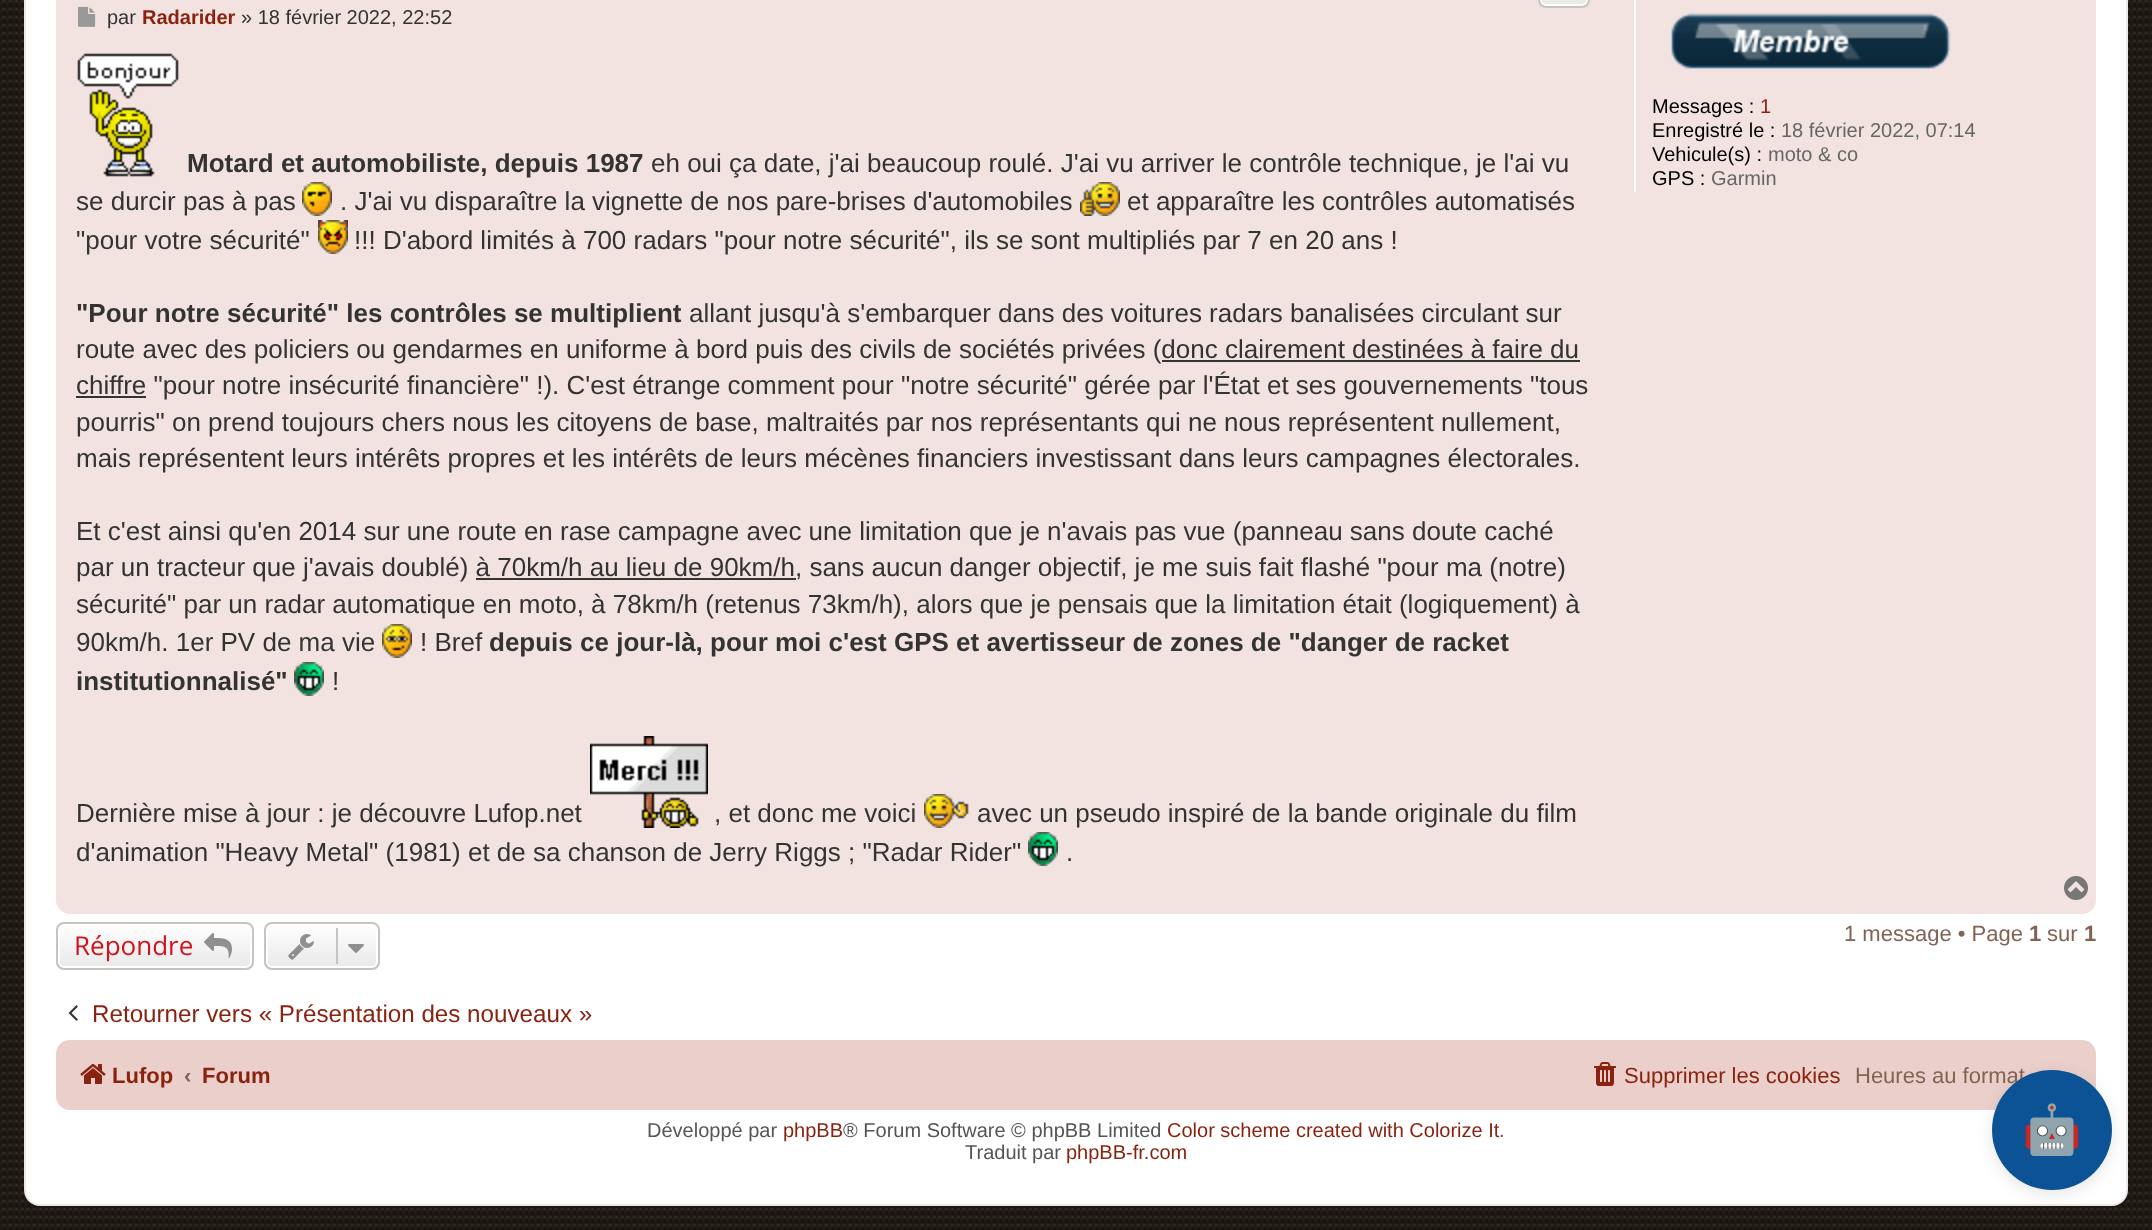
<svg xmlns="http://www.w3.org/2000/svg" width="2152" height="1230">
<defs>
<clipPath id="clip1"><rect x="1538" y="-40" width="52" height="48" rx="8"/></clipPath>
<linearGradient id="g1" gradientUnits="userSpaceOnUse" x1="1564" y1="-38" x2="1564" y2="6"><stop offset="0" stop-color="#fff"/><stop offset="1" stop-color="#e9e9e9"/></linearGradient>
<clipPath id="clip2"><rect x="56" y="922" width="198" height="48" rx="8"/></clipPath>
<linearGradient id="g2" gradientUnits="userSpaceOnUse" x1="155" y1="924" x2="155" y2="968"><stop offset="0" stop-color="#fff"/><stop offset="1" stop-color="#e9e9e9"/></linearGradient>
<clipPath id="clip3"><rect x="264" y="922" width="116" height="48" rx="8"/></clipPath>
<linearGradient id="g3" gradientUnits="userSpaceOnUse" x1="322" y1="924" x2="322" y2="968"><stop offset="0" stop-color="#fff"/><stop offset="1" stop-color="#e9e9e9"/></linearGradient>
</defs>
<rect width="100%" height="100%" fill="#fff"/>
<image x="0" y="0" width="2152" height="1230" href="media/1.png"/>
<rect x="25" y="-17" width="2102" height="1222" rx="15" fill="#fff" stroke="#ede8e6" stroke-width="2"/>
<rect x="56" y="-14" width="2040" height="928" rx="14" fill="#f2e3e1"/>
<g clip-path="url(#clip1)">
<rect x="1538" width="52" height="6" fill="url(#g1)"/>
</g>
<rect x="1541" y="-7" width="46" height="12" rx="5" fill="none" stroke="#fff" stroke-width="2"/>
<rect x="1539" y="-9" width="50" height="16" rx="7" fill="none" stroke="#c7c3bf" stroke-width="2"/>
<image x="78" y="6" width="18" height="21" href="media/2.png"/>
<text x="107" y="24" style="font-family:Liberation Sans;font-size:20px;fill:#333">par</text>
<text x="142" y="24" style="font-family:Liberation Sans;font-size:20px;font-weight:bold;fill:#892310">Radarider</text>
<text x="241" y="24" style="font-family:Liberation Sans;font-size:20px;fill:#333">» 18 février 2022, 22:52</text>
<image x="77" y="53" width="102" height="124" href="media/3.png"/>
<text x="187" y="172" style="font-family:Liberation Sans;font-size:26px;font-weight:bold;fill:#333">Motard et automobiliste, depuis 1987</text>
<text x="651" y="172" style="font-family:Liberation Sans;font-size:26px;fill:#333">eh oui ça date, j'ai beaucoup roulé. J'ai vu arriver le contrôle technique, je l'ai vu</text>
<text x="76" y="210" style="font-family:Liberation Sans;font-size:26px;fill:#333">se durcir pas à pas</text>
<image x="302" y="182" width="30" height="34" href="media/4.png"/>
<text x="340" y="210" style="font-family:Liberation Sans;font-size:26px;fill:#333">. J'ai vu disparaître la vignette de nos pare-brises d'automobiles</text>
<image x="1080" y="182" width="40" height="34" href="media/5.png"/>
<text x="1127" y="210" style="font-family:Liberation Sans;font-size:26px;fill:#333">et apparaître les contrôles automatisés</text>
<text x="76" y="249" style="font-family:Liberation Sans;font-size:26px;fill:#333">"pour votre sécurité"</text>
<image x="318" y="220" width="30" height="34" href="media/6.png"/>
<text x="354" y="249" style="font-family:Liberation Sans;font-size:26px;fill:#333">!!! D'abord limités à 700 radars "pour notre sécurité", ils se sont multipliés par 7 en 20 ans !</text>
<text x="76" y="322" style="font-family:Liberation Sans;font-size:26px;font-weight:bold;fill:#333">"Pour notre sécurité" les contrôles se multiplient</text>
<text x="689" y="322" style="font-family:Liberation Sans;font-size:26px;fill:#333">allant jusqu'à s'embarquer dans des voitures radars banalisées circulant sur</text>
<text x="76" y="358" style="font-family:Liberation Sans;font-size:26px;fill:#333">route avec des policiers ou gendarmes en uniforme à bord puis des civils de sociétés privées (donc clairement destinées à faire du</text>
<rect x="76" y="396" width="70" height="2" fill="#333"/>
<text x="76" y="394" style="font-family:Liberation Sans;font-size:26px;fill:#333">chiffre "pour notre insécurité financière" !). C'est étrange comment pour "notre sécurité" gérée par l'État et ses gouvernements "tous</text>
<rect x="1162" y="360" width="418" height="2" fill="#333"/>
<text x="76" y="431" style="font-family:Liberation Sans;font-size:26px;fill:#333">pourris" on prend toujours chers nous les citoyens de base, maltraités par nos représentants qui ne nous représentent nullement,</text>
<text x="76" y="467" style="font-family:Liberation Sans;font-size:26px;fill:#333">mais représentent leurs intérêts propres et les intérêts de leurs mécènes financiers investissant dans leurs campagnes électorales.</text>
<text x="76" y="540" style="font-family:Liberation Sans;font-size:26px;fill:#333">Et c'est ainsi qu'en 2014 sur une route en rase campagne avec une limitation que je n'avais pas vue (panneau sans doute caché</text>
<text x="76" y="576" style="font-family:Liberation Sans;font-size:26px;fill:#333">par un tracteur que j'avais doublé) à 70km/h au lieu de 90km/h, sans aucun danger objectif, je me suis fait flashé "pour ma (notre)</text>
<rect x="476" y="578" width="320" height="2" fill="#333"/>
<text x="76" y="613" style="font-family:Liberation Sans;font-size:26px;fill:#333">sécurité" par un radar automatique en moto, à 78km/h (retenus 73km/h), alors que je pensais que la limitation était (logiquement) à</text>
<text x="76" y="651" style="font-family:Liberation Sans;font-size:26px;fill:#333">90km/h. 1er PV de ma vie</text>
<image x="382" y="624" width="30" height="34" href="media/7.png"/>
<text x="420" y="651" style="font-family:Liberation Sans;font-size:26px;fill:#333">! Bref</text>
<text x="489" y="651" style="font-family:Liberation Sans;font-size:26px;font-weight:bold;fill:#333">depuis ce jour-là, pour moi c'est GPS et avertisseur de zones de "danger de racket</text>
<text x="76" y="690" style="font-family:Liberation Sans;font-size:26px;font-weight:bold;fill:#333">institutionnalisé"</text>
<image x="294" y="662" width="30" height="34" href="media/8.png"/>
<text x="332" y="690" style="font-family:Liberation Sans;font-size:26px;fill:#333">!</text>
<text x="76" y="822" style="font-family:Liberation Sans;font-size:26px;fill:#333">Dernière mise à jour : je découvre Lufop.net</text>
<image x="590" y="736" width="118" height="92" href="media/9.png"/>
<text x="714" y="822" style="font-family:Liberation Sans;font-size:26px;fill:#333">, et donc me voici</text>
<image x="924" y="794" width="45" height="34" href="media/10.png"/>
<text x="977" y="822" style="font-family:Liberation Sans;font-size:26px;fill:#333">avec un pseudo inspiré de la bande originale du film</text>
<text x="76" y="861" style="font-family:Liberation Sans;font-size:26px;fill:#333">d'animation "Heavy Metal" (1981) et de sa chanson de Jerry Riggs ; "Radar Rider"</text>
<image x="1028" y="832" width="30" height="34" href="media/8.png"/>
<text x="1066" y="861" style="font-family:Liberation Sans;font-size:26px;fill:#333">.</text>
<rect x="1634" width="2" height="192" fill="#fff"/>
<image x="1671" y="13" width="280" height="56" href="media/11.png"/>
<text x="1652" y="113" style="font-family:Liberation Sans;font-size:20px;fill:#000">Messages :</text>
<text x="1760" y="113" style="font-family:Liberation Sans;font-size:20px;fill:#892310">1</text>
<text x="1652" y="137" style="font-family:Liberation Sans;font-size:20px;fill:#000">Enregistré le :</text>
<text x="1781" y="137" style="font-family:Liberation Sans;font-size:20px;fill:#666">18 février 2022, 07:14</text>
<text x="1652" y="161" style="font-family:Liberation Sans;font-size:20px;fill:#000">Vehicule(s) :</text>
<text x="1768" y="161" style="font-family:Liberation Sans;font-size:20px;fill:#666">moto &amp; co</text>
<text x="1652" y="185" style="font-family:Liberation Sans;font-size:20px;fill:#000">GPS :</text>
<text x="1711" y="185" style="font-family:Liberation Sans;font-size:20px;fill:#666">Garmin</text>
<image x="2064" y="876" width="24" height="24" href="media/12.png"/>
<g clip-path="url(#clip2)">
<rect x="56" y="924" width="198" height="44" fill="url(#g2)"/>
</g>
<rect x="59" y="925" width="192" height="42" rx="5" fill="none" stroke="#fff" stroke-width="2"/>
<rect x="57" y="923" width="196" height="46" rx="7" fill="none" stroke="#c7c3bf" stroke-width="2"/>
<text x="74" y="955" style="font-family:Open Sans;font-size:26px;fill:#d3111a">Répondre</text>
<image x="204" y="933" width="28" height="25" href="media/13.png"/>
<g clip-path="url(#clip3)">
<rect x="264" y="924" width="116" height="44" fill="url(#g3)"/>
</g>
<rect x="267" y="925" width="110" height="42" rx="5" fill="none" stroke="#fff" stroke-width="2"/>
<rect x="265" y="923" width="114" height="46" rx="7" fill="none" stroke="#c7c3bf" stroke-width="2"/>
<image x="288" y="934" width="26" height="26" href="media/14.png"/>
<rect x="336" y="928" width="2" height="36" fill="#c7c3bf"/>
<image x="348" y="944" width="16" height="9" href="media/15.png"/>
<text x="1844" y="941" style="font-family:Liberation Sans;font-size:22px;fill:#826353">1 message • Page</text>
<text x="2029" y="941" style="font-family:Liberation Sans;font-size:22px;font-weight:bold;fill:#826353">1</text>
<text x="2047" y="941" style="font-family:Liberation Sans;font-size:22px;fill:#826353">sur</text>
<text x="2084" y="941" style="font-family:Liberation Sans;font-size:22px;font-weight:bold;fill:#826353">1</text>
<image x="68" y="1005" width="10" height="16" href="media/16.png"/>
<text x="92" y="1022" style="font-family:Liberation Sans;font-size:24.2px;fill:#892310">Retourner vers « Présentation des nouveaux »</text>
<rect x="56" y="1040" width="2040" height="70" rx="14" fill="#ebcfca"/>
<image x="80" y="1064" width="26" height="20" href="media/17.png"/>
<text x="112" y="1083" style="font-family:Liberation Sans;font-size:22px;font-weight:bold;fill:#892310">Lufop</text>
<text x="184" y="1083" style="font-family:Liberation Sans;font-size:22px;font-weight:bold;fill:#826353">‹</text>
<text x="202" y="1083" style="font-family:Liberation Sans;font-size:22px;font-weight:bold;fill:#892310">Forum</text>
<image x="1594" y="1062" width="22" height="24" href="media/18.png"/>
<text x="1624" y="1083" style="font-family:Liberation Sans;font-size:22px;fill:#892310">Supprimer les cookies</text>
<text x="1855" y="1083" style="font-family:Liberation Sans;font-size:22px;fill:#826353">Heures au format</text>
<text x="647" y="1137" style="font-family:Liberation Sans;font-size:20px;fill:#555">Développé par</text>
<text x="783" y="1137" style="font-family:Liberation Sans;font-size:20px;fill:#892310">phpBB</text>
<text x="843" y="1137" style="font-family:Liberation Sans;font-size:20px;fill:#555">® Forum Software © phpBB Limited</text>
<text x="1167" y="1137" style="font-family:Liberation Sans;font-size:20px;fill:#892310">Color scheme created with Colorize It</text>
<text x="1499" y="1137" style="font-family:Liberation Sans;font-size:20px;fill:#555">.</text>
<text x="965" y="1159" style="font-family:Liberation Sans;font-size:20px;fill:#555">Traduit par</text>
<text x="1066" y="1159" style="font-family:Liberation Sans;font-size:20px;fill:#892310">phpBB-fr.com</text>
<rect x="1992" y="1074" width="120" height="120" rx="60" fill="#0000001a" filter="blur(8px)"/>
<circle cx="2052" cy="1130" r="60" fill="#0b5394"/>
<text x="2022" y="1146" style="font-family:Noto Color Emoji;font-size:48px;fill:#fff">🤖</text>
</svg>
